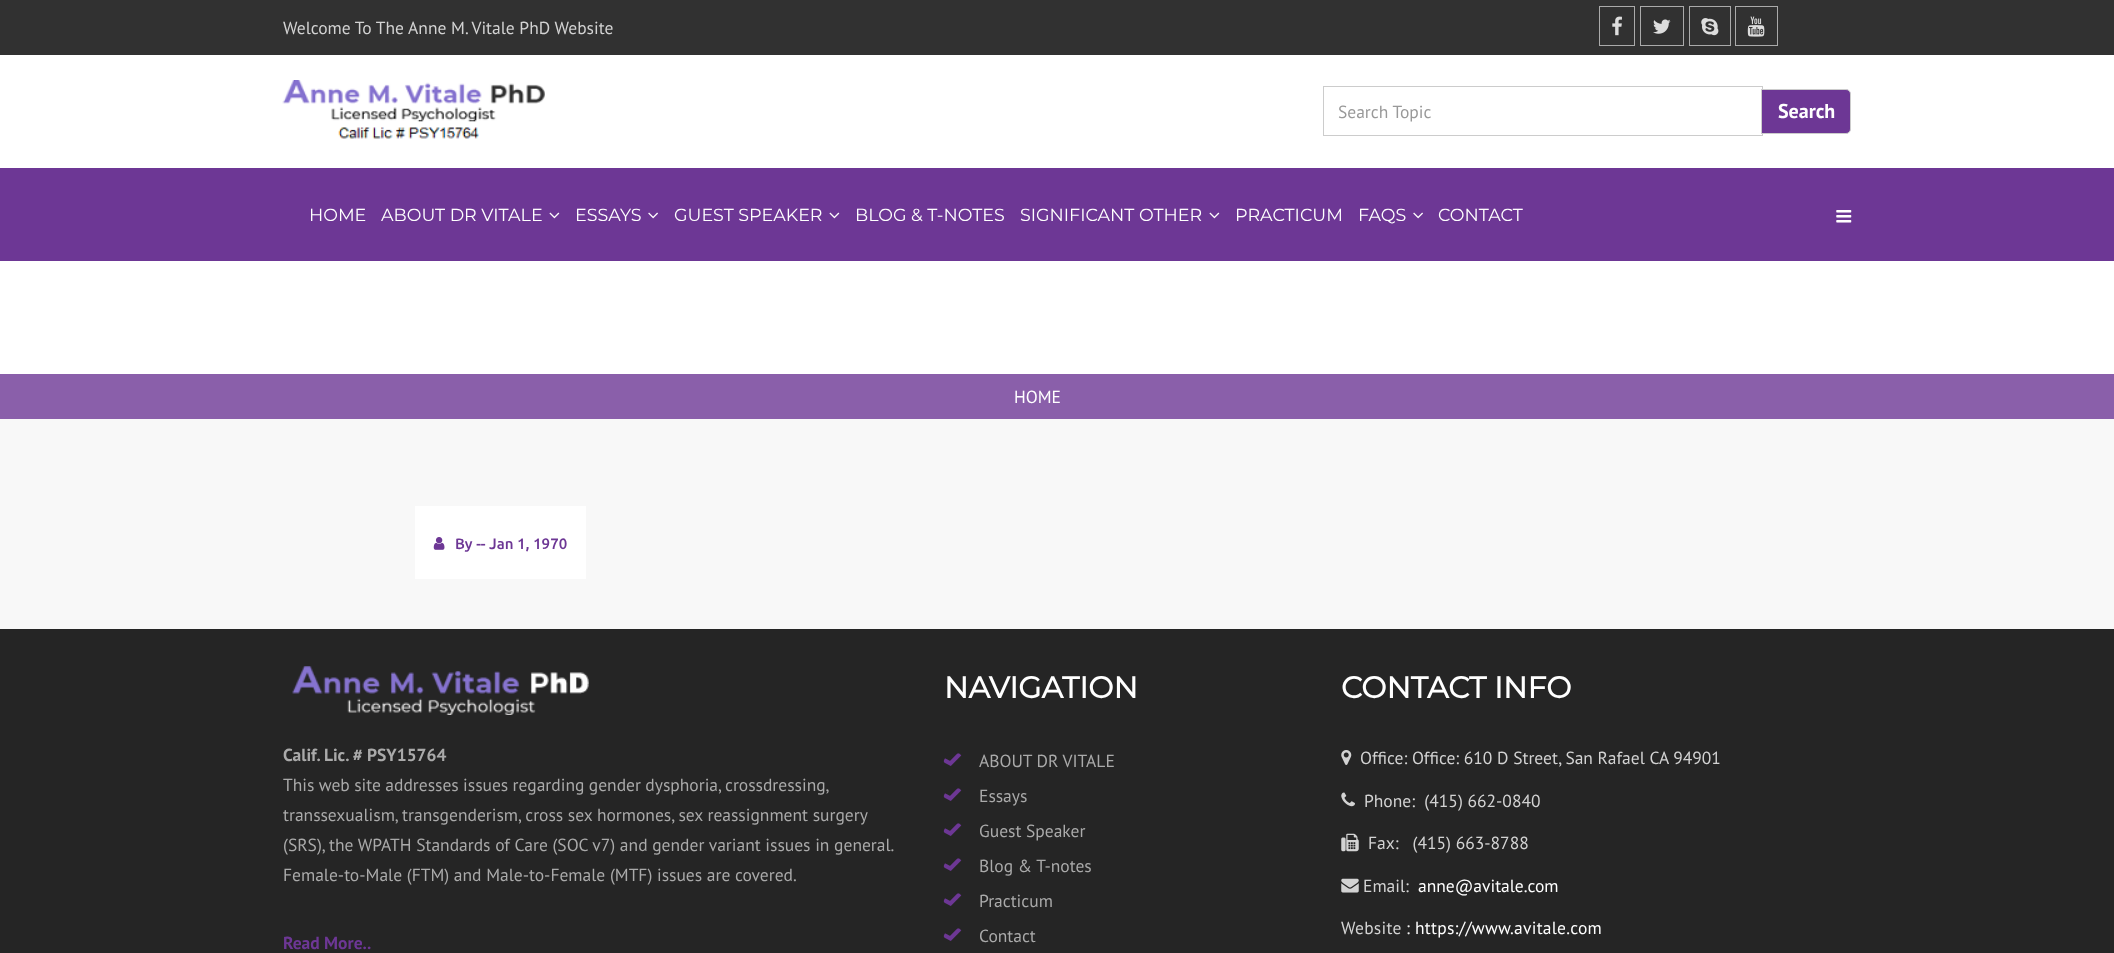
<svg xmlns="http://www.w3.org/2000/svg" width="2114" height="953">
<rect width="100%" height="100%" fill="#fff"/>
<rect width="2114" height="55" fill="#313131"/>
<text x="283" y="34" style="font-family:PT Sans;font-size:17.5px;fill:#d3d3d3">Welcome To The Anne M. Vitale PhD Website</text>
<rect x="1599.5" y="6.5" width="35" height="39" fill="none" stroke="#aaa"/>
<image x="1612" y="16" width="10" height="20" href="media/1.png"/>
<rect x="1640.5" y="6.5" width="43" height="39" fill="none" stroke="#aaa"/>
<image x="1653" y="19" width="18" height="15" href="media/2.png"/>
<rect x="1689.5" y="6.5" width="41" height="39" fill="none" stroke="#aaa"/>
<image x="1701" y="18" width="18" height="18" href="media/3.png"/>
<rect x="1735.5" y="6.5" width="42" height="39" fill="none" stroke="#aaa"/>
<image x="1747" y="16" width="18" height="21" href="media/4.png"/>
<image x="282" y="80" width="263" height="59" href="media/5.png"/>
<rect x="1323.5" y="86.5" width="439" height="49" fill="none" stroke="#ccc"/>
<text x="1338" y="118" style="font-family:PT Sans;font-size:17.5px;fill:#999">Search Topic</text>
<path d="M1761.5 89.5h84.5c2.5 0 4.5 2 4.5 4.5v35c0 2.5-2 4.5-4.5 4.5h-84.5z" fill="#6d3795" stroke="#ccc"/>
<text x="1778" y="118" style="font-family:PT Sans;font-size:20px;font-weight:bold;fill:#fff">Search</text>
<rect y="168" width="2114" height="93" fill="#6d3795"/>
<text x="309" y="221" style="font-family:Montserrat;font-size:17.5px;font-weight:100;fill:#fff">HOME</text>
<text x="381" y="221" style="font-family:Montserrat;font-size:17.5px;font-weight:100;fill:#fff">ABOUT DR VITALE</text>
<image x="549" y="212" width="11" height="7" href="media/6.png"/>
<text x="575" y="221" style="font-family:Montserrat;font-size:17.5px;font-weight:100;fill:#fff">ESSAYS</text>
<image x="648" y="212" width="10" height="7" href="media/7.png"/>
<text x="674" y="221" style="font-family:Montserrat;font-size:17.5px;font-weight:100;fill:#fff">GUEST SPEAKER</text>
<image x="829" y="212" width="11" height="7" href="media/6.png"/>
<text x="855" y="221" style="font-family:Montserrat;font-size:17.5px;font-weight:100;fill:#fff">BLOG &amp; T-NOTES</text>
<text x="1020" y="221" style="font-family:Montserrat;font-size:17.5px;font-weight:100;fill:#fff">SIGNIFICANT OTHER</text>
<image x="1209" y="212" width="11" height="7" href="media/6.png"/>
<text x="1235" y="221" style="font-family:Montserrat;font-size:17.5px;font-weight:100;fill:#fff">PRACTICUM</text>
<text x="1358" y="221" style="font-family:Montserrat;font-size:17.5px;font-weight:100;fill:#fff">FAQS</text>
<image x="1413" y="212" width="10" height="7" href="media/7.png"/>
<text x="1438" y="221" style="font-family:Montserrat;font-size:17.5px;font-weight:100;fill:#fff">CONTACT</text>
<image x="1836" y="210" width="16" height="13" href="media/8.png"/>
<rect y="374" width="2114" height="45" fill="#8a5faa"/>
<text x="1014" y="403" style="font-family:PT Sans;font-size:17.5px;fill:#fff">HOME</text>
<rect y="419" width="2114" height="210" fill="#f8f8f8"/>
<rect x="415" y="506" width="171" height="73" fill="#fff"/>
<image x="433" y="537" width="12" height="13" href="media/9.png"/>
<text x="455" y="549" style="font-family:Ubuntu;font-size:15px;font-weight:500;fill:#6d3795">By -- Jan 1, 1970</text>
<rect y="629" width="2114" height="324" fill="#252525"/>
<image x="292" y="666" width="297" height="49" href="media/10.png"/>
<text x="283" y="761" style="font-family:PT Sans;font-size:17.5px;font-weight:bold;fill:#aaa">Calif. Lic. # PSY15764</text>
<text x="283" y="791" word-spacing="-0.25" style="font-family:PT Sans;font-size:17.5px;fill:#aaa">This web site addresses issues regarding gender dysphoria, crossdressing,</text>
<text x="283" y="821" style="font-family:PT Sans;font-size:17.5px;fill:#aaa">transsexualism, transgenderism, cross sex hormones, sex reassignment surgery</text>
<text x="283" y="851" style="font-family:PT Sans;font-size:17.5px;fill:#aaa">(SRS), the WPATH Standards of Care (SOC v7) and gender variant issues in general.</text>
<text x="283" y="881" style="font-family:PT Sans;font-size:17.5px;fill:#aaa">Female-to-Male (FTM) and Male-to-Female (MTF) issues are covered.</text>
<text x="283" y="949" style="font-family:PT Sans;font-size:17.5px;font-weight:bold;fill:#6d3795">Read More..</text>
<text x="944" y="698" style="font-family:Montserrat;font-size:30px;font-weight:bold;fill:#fff">NAVIGATION</text>
<image x="943" y="753" width="19" height="13" href="media/11.png"/>
<text x="979" y="767" style="font-family:PT Sans;font-size:17.5px;fill:#aaa">ABOUT DR VITALE</text>
<image x="943" y="788" width="19" height="13" href="media/11.png"/>
<text x="979" y="802" style="font-family:PT Sans;font-size:17.5px;fill:#aaa">Essays</text>
<image x="943" y="823" width="19" height="13" href="media/11.png"/>
<text x="979" y="837" style="font-family:PT Sans;font-size:17.5px;fill:#aaa">Guest Speaker</text>
<image x="943" y="858" width="19" height="13" href="media/11.png"/>
<text x="979" y="872" style="font-family:PT Sans;font-size:17.5px;fill:#aaa">Blog &amp; T-notes</text>
<image x="943" y="893" width="19" height="13" href="media/11.png"/>
<text x="979" y="907" style="font-family:PT Sans;font-size:17.5px;fill:#aaa">Practicum</text>
<image x="943" y="928" width="19" height="13" href="media/11.png"/>
<text x="979" y="942" style="font-family:PT Sans;font-size:17.5px;fill:#aaa">Contact</text>
<text x="1341" y="698" style="font-family:Montserrat;font-size:30px;font-weight:bold;fill:#fff">CONTACT INFO</text>
<image x="1341" y="750" width="11" height="15" href="media/12.png"/>
<text x="1360" y="764" style="font-family:PT Sans;font-size:17.5px;fill:#d3d3d3">Office: Office: 610 D Street, San Rafael CA 94901</text>
<image x="1341" y="792" width="14" height="15" href="media/13.png"/>
<text x="1364" y="807" style="font-family:PT Sans;font-size:17.5px;fill:#d3d3d3" xml:space="preserve">Phone:  (415) 662-0840</text>
<image x="1341" y="833" width="18" height="19" href="media/14.png"/>
<text x="1368" y="849" style="font-family:PT Sans;font-size:17.5px;fill:#d3d3d3" xml:space="preserve">Fax:   (415) 663-8788</text>
<image x="1341" y="878" width="18" height="15" href="media/15.png"/>
<text x="1363" y="892" style="font-family:PT Sans;font-size:17.5px;fill:#d3d3d3">Email:</text>
<text x="1418" y="892" style="font-family:PT Sans;font-size:17.5px;fill:#fff">anne@avitale.com</text>
<text x="1341" y="934" style="font-family:PT Sans;font-size:17.5px;letter-spacing:0.25px;fill:#d3d3d3">Website</text>
<text x="1406" y="934" style="font-family:PT Sans;font-size:17.5px;letter-spacing:0.25px;fill:#eee">:</text>
<text x="1415" y="934" style="font-family:PT Sans;font-size:17.5px;letter-spacing:0.25px;fill:#fff">https://www.avitale.com</text>
</svg>
